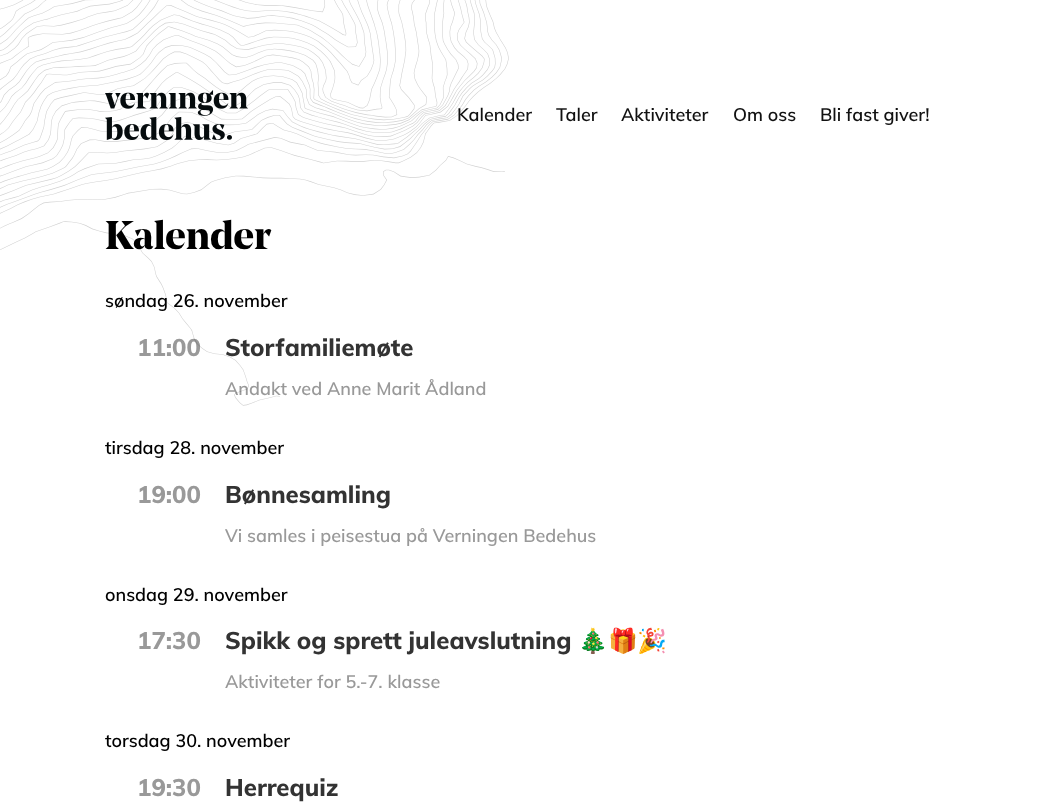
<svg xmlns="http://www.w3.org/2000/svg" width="1046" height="812">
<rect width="100%" height="100%" fill="#fff"/>
<text x="105" y="249" style="font-family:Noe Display;font-size:40px;font-weight:bold;fill:#000">Kalender</text>
<text x="105" y="307" style="font-family:Muli;font-size:18px;font-weight:600;fill:#000">søndag 26. november</text>
<text x="137" y="356" style="font-family:Muli;font-size:24px;font-weight:800;fill:#999">11:00</text>
<text x="225" y="395" style="font-family:Muli;font-size:18px;font-weight:600;fill:#999">Andakt ved Anne Marit Ådland</text>
<image x="0" y="0" width="509" height="406" href="media/1.png"/>
<image x="105" y="90" width="143" height="50" href="media/2.png"/>
<text x="457" y="121" style="font-family:Muli;font-size:18px;font-weight:600;fill:#111">Kalender</text>
<text x="556" y="121" style="font-family:Muli;font-size:18px;font-weight:600;fill:#111">Taler</text>
<text x="621" y="121" style="font-family:Muli;font-size:18px;font-weight:600;fill:#111">Aktiviteter</text>
<text x="733" y="121" style="font-family:Muli;font-size:18px;font-weight:600;fill:#111">Om oss</text>
<text x="820" y="121" style="font-family:Muli;font-size:18px;font-weight:600;fill:#111">Bli fast giver!</text>
<text x="225" y="356" style="font-family:Muli;font-size:24px;font-weight:800;fill:#333">Storfamiliemøte</text>
<text x="105" y="454" style="font-family:Muli;font-size:18px;font-weight:600;fill:#000">tirsdag 28. november</text>
<text x="137" y="503" style="font-family:Muli;font-size:24px;font-weight:800;fill:#999">19:00</text>
<text x="225" y="503" style="font-family:Muli;font-size:24px;font-weight:800;fill:#333">Bønnesamling</text>
<text x="225" y="542" style="font-family:Muli;font-size:18px;font-weight:600;fill:#999">Vi samles i peisestua på Verningen Bedehus</text>
<text x="105" y="601" style="font-family:Muli;font-size:18px;font-weight:600;fill:#000">onsdag 29. november</text>
<text x="137" y="649" style="font-family:Muli;font-size:24px;font-weight:800;fill:#999">17:30</text>
<text x="225" y="649" style="font-family:Muli;font-size:24px;font-weight:800;fill:#333">Spikk og sprett juleavslutning</text>
<text x="578" y="649" style="font-family:Noto Color Emoji;font-size:24px;font-weight:bold;fill:#333">🎄🎁🎉</text>
<text x="225" y="688" style="font-family:Muli;font-size:18px;font-weight:600;fill:#999">Aktiviteter for 5.-7. klasse</text>
<text x="105" y="747" style="font-family:Muli;font-size:18px;font-weight:600;fill:#000">torsdag 30. november</text>
<text x="137" y="796" style="font-family:Muli;font-size:24px;font-weight:800;fill:#999">19:30</text>
<text x="225" y="796" style="font-family:Muli;font-size:24px;font-weight:800;fill:#333">Herrequiz</text>
</svg>
